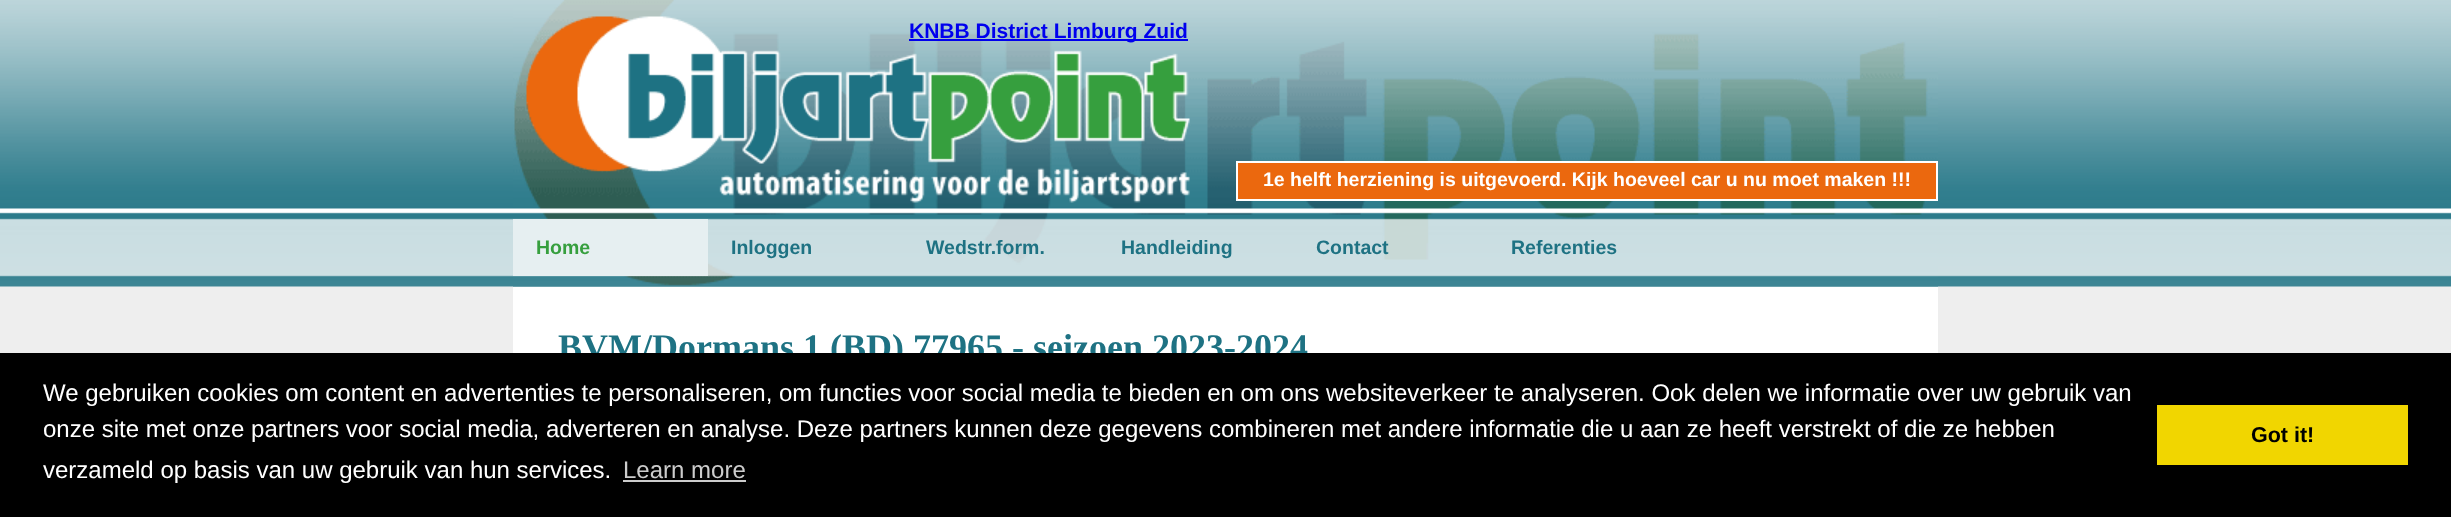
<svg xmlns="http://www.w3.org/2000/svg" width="2451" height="517">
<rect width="100%" height="100%" fill="#eee"/>
<image x="0" y="0" width="2451" height="287" href="media/1.png"/>
<image x="513" y="0" width="1425" height="287" href="media/2.png"/>
<rect x="909" y="39" width="279" height="2" fill="#00e"/>
<text x="909" y="38" style="font-family:Liberation Sans;font-size:21px;font-weight:bold;fill:#00e">KNBB District Limburg Zuid</text>
<rect x="1237" y="162" width="700" height="38" fill="#eb680e" stroke="#fff" stroke-width="2"/>
<text x="1263" y="186" style="font-family:Liberation Sans;font-size:19.5px;font-weight:bold;fill:#fff">1e helft herziening is uitgevoerd. Kijk hoeveel car u nu moet maken !!!</text>
<rect x="513" y="219" width="195" height="57" fill="#e6eff1"/>
<text x="536" y="254" style="font-family:Liberation Sans;font-size:19.5px;font-weight:bold;fill:#369f3e">Home</text>
<text x="731" y="254" style="font-family:Liberation Sans;font-size:19.5px;font-weight:bold;fill:#1e7283">Inloggen</text>
<text x="926" y="254" style="font-family:Liberation Sans;font-size:19.5px;font-weight:bold;fill:#1e7283">Wedstr.form.</text>
<text x="1121" y="254" style="font-family:Liberation Sans;font-size:19.5px;font-weight:bold;fill:#1e7283">Handleiding</text>
<text x="1316" y="254" style="font-family:Liberation Sans;font-size:19.5px;font-weight:bold;fill:#1e7283">Contact</text>
<text x="1511" y="254" style="font-family:Liberation Sans;font-size:19.5px;font-weight:bold;fill:#1e7283">Referenties</text>
<rect x="513" y="287" width="1425" height="66" fill="#fff"/>
<text x="558" y="359" style="font-family:Liberation Serif;font-size:36px;font-weight:bold;fill:#1e7283">BVM/Dormans 1 (BD) 77965 - seizoen 2023-2024</text>
<rect y="353" width="2451" height="164" fill="#000"/>
<text x="43" y="401" style="font-family:Liberation Sans;font-size:24px;fill:#fff">We gebruiken cookies om content en advertenties te personaliseren, om functies voor social media te bieden en om ons websiteverkeer te analyseren. Ook delen we informatie over uw gebruik van</text>
<text x="43" y="437" style="font-family:Liberation Sans;font-size:24px;fill:#fff">onze site met onze partners voor social media, adverteren en analyse. Deze partners kunnen deze gegevens combineren met andere informatie die u aan ze heeft verstrekt of die ze hebben</text>
<text x="43" y="478" style="font-family:Liberation Sans;font-size:24px;fill:#fff">verzameld op basis van uw gebruik van hun services.</text>
<text x="623" y="478" style="font-family:Liberation Sans;font-size:24px;fill:#ccc">Learn more</text>
<rect x="623" y="480" width="123" height="2" fill="#ccc"/>
<rect x="2157" y="405" width="251" height="60" fill="#f1d600"/>
<text x="2251" y="442" style="font-family:Liberation Sans;font-size:21.5px;font-weight:bold;fill:#000">Got it!</text>
</svg>
